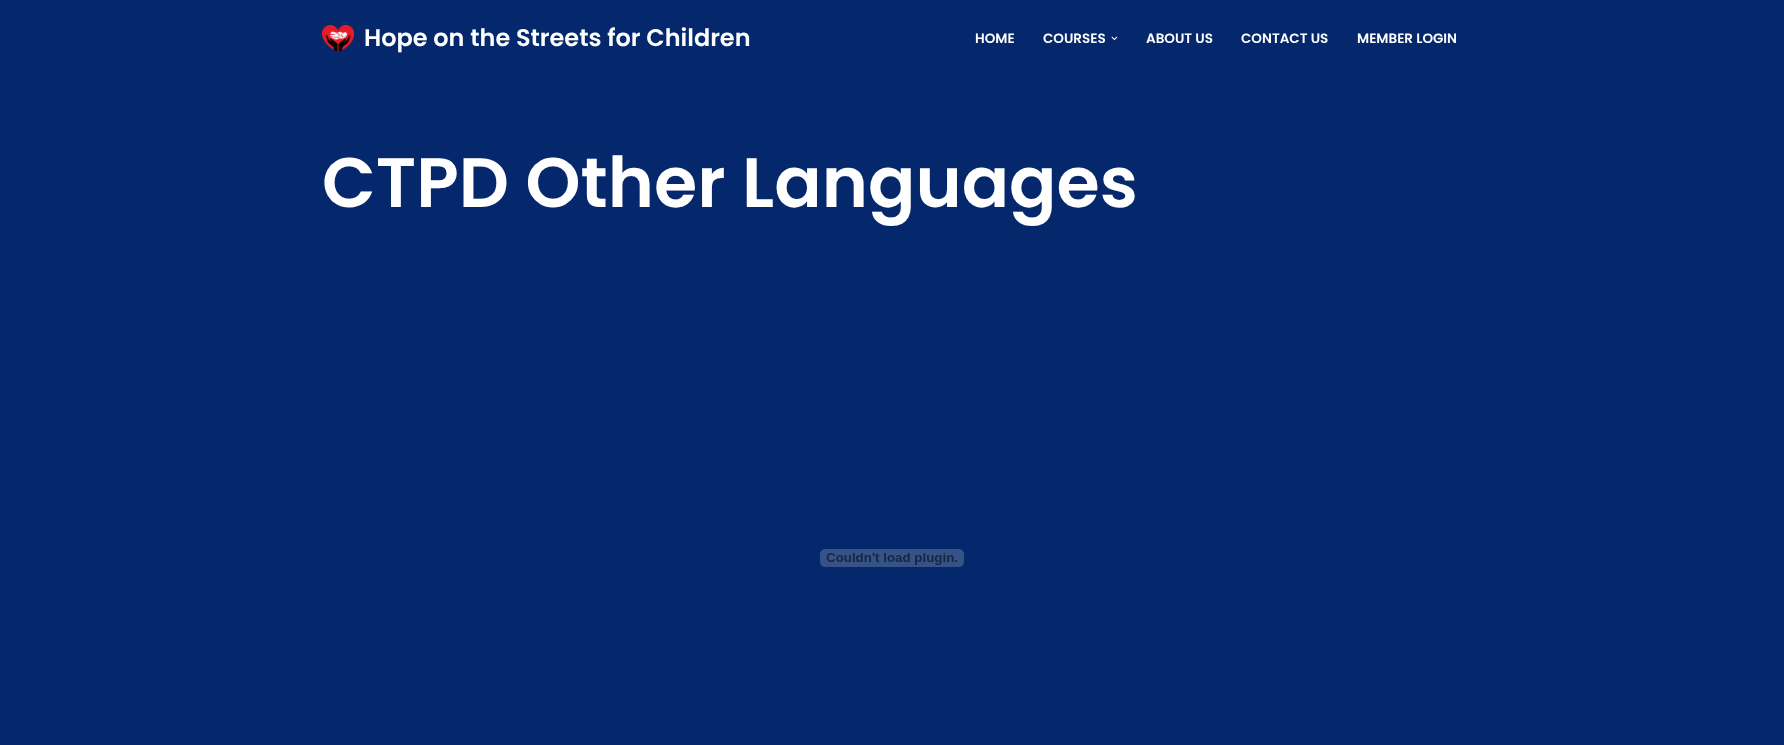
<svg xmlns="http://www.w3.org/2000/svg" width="1784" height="745">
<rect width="100%" height="100%" fill="#04286b"/>
<image x="322" y="25" width="32" height="27" href="media/1.png"/>
<text x="364" y="46" style="font-family:Poppins;font-size:24px;font-weight:600;fill:#fff">Hope on the Streets for Children</text>
<text x="975" y="43" style="font-family:Poppins;font-size:13.5px;font-weight:600;fill:#fff">HOME</text>
<text x="1043" y="43" style="font-family:Poppins;font-size:13.5px;font-weight:600;fill:#fff">COURSES</text>
<image x="1111" y="36" width="7" height="5" href="media/2.png"/>
<text x="1146" y="43" style="font-family:Poppins;font-size:13.5px;font-weight:600;fill:#fff">ABOUT US</text>
<text x="1241" y="43" style="font-family:Poppins;font-size:13.5px;font-weight:600;fill:#fff">CONTACT US</text>
<text x="1357" y="43" style="font-family:Poppins;font-size:13.5px;font-weight:600;fill:#fff">MEMBER LOGIN</text>
<text x="322" y="207" style="font-family:Poppins;font-size:70px;font-weight:600;fill:#fff">CTPD Other Languages</text>
<image x="820" y="549" width="144" height="18" href="media/3.png"/>
</svg>
